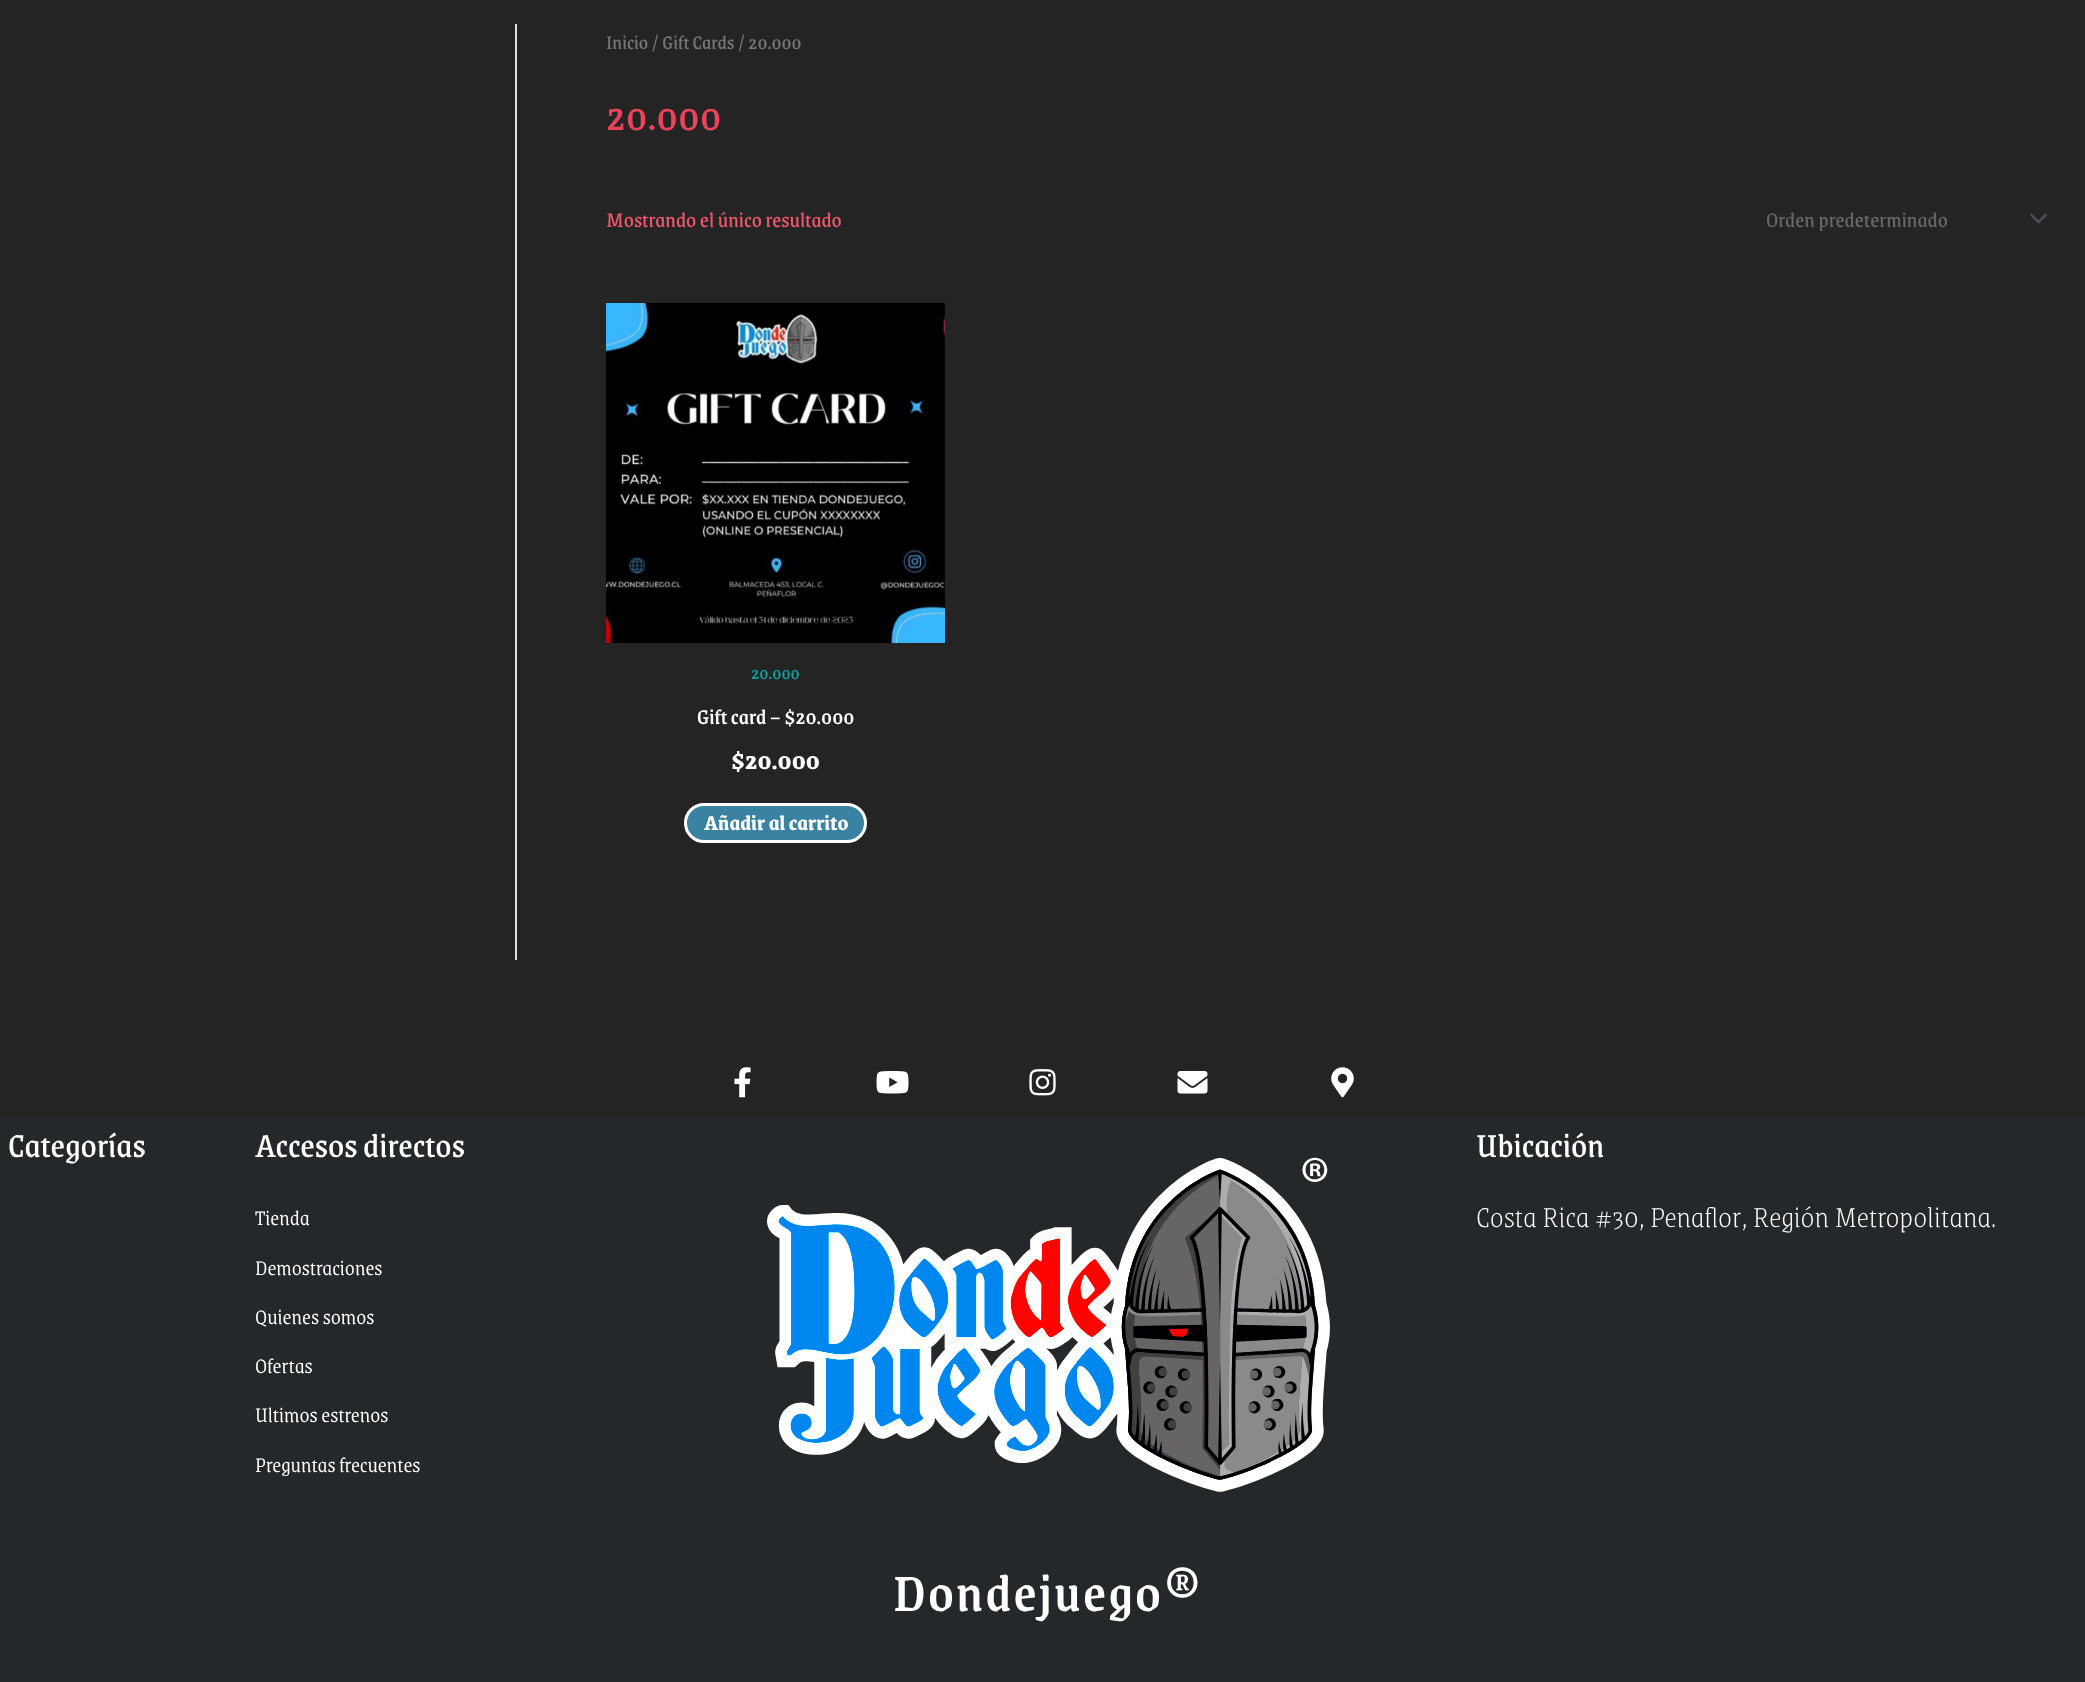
<svg xmlns="http://www.w3.org/2000/svg" width="2085" height="1682">
<rect width="100%" height="100%" fill="#242424"/>
<rect x="515" y="24" width="2" height="936" fill="#ddd"/>
<text x="606" y="49" style="font-family:Grenze;font-size:20.75px;fill:#777">Inicio / Gift Cards / 20.000</text>
<text x="606" y="130" style="font-family:Grenze Gotisch;font-size:45px;fill:#eb445a">20.000</text>
<text x="606" y="227" style="font-family:Grenze;font-size:22.5px;fill:#ed576b">Mostrando el único resultado</text>
<image x="2030" y="213" width="17" height="11" href="media/1.png"/>
<text x="1766" y="227" style="font-family:Grenze;font-size:22.5px;fill:#666">Orden predeterminado</text>
<image x="606" y="303" width="339" height="340" href="media/2.png"/>
<text x="751" y="679" style="font-family:Grenze;font-size:19px;fill:#0ea7a3">20.000</text>
<text x="697" y="724" style="font-family:Grenze;font-size:22.5px;font-weight:500;fill:#fff">Gift card – $20.000</text>
<text x="731" y="769" style="font-family:Grenze;font-size:27px;font-weight:bold;fill:#fff">$20.000</text>
<rect x="685.5" y="804.5" width="180" height="37" rx="18.5" fill="#3a82a1" stroke="#fff" stroke-width="3"/>
<text x="704" y="830" style="font-family:Grenze;font-size:22.5px;font-weight:bold;fill:#fff">Añadir al carrito</text>
<image x="734" y="1067" width="17" height="31" href="media/3.png"/>
<image x="876" y="1071" width="33" height="23" href="media/4.png"/>
<image x="1029" y="1069" width="27" height="27" href="media/5.png"/>
<image x="1177" y="1071" width="31" height="23" href="media/6.png"/>
<image x="1331" y="1067" width="23" height="31" href="media/7.png"/>
<rect y="1116" width="2085" height="566" fill="#25282b"/>
<text x="8" y="1157" style="font-family:Grenze;font-size:36px;fill:#fff">Categorías</text>
<text x="255" y="1157" style="font-family:Grenze;font-size:36px;fill:#fff">Accesos directos</text>
<text x="255" y="1225" style="font-family:Grenze;font-size:22.5px;font-weight:300;fill:#fff">Tienda</text>
<text x="255" y="1275" style="font-family:Grenze;font-size:22.5px;font-weight:300;fill:#fff">Demostraciones</text>
<text x="255" y="1324" style="font-family:Grenze;font-size:22.5px;font-weight:300;fill:#fff">Quienes somos</text>
<text x="255" y="1373" style="font-family:Grenze;font-size:22.5px;font-weight:300;fill:#fff">Ofertas</text>
<text x="255" y="1422" style="font-family:Grenze;font-size:22.5px;font-weight:300;fill:#fff">Ultimos estrenos</text>
<text x="255" y="1472" style="font-family:Grenze;font-size:22.5px;font-weight:300;fill:#fff">Preguntas frecuentes</text>
<text x="1476" y="1157" style="font-family:Grenze;font-size:36px;fill:#fff">Ubicación</text>
<text x="1476" y="1227" style="font-family:Grenze;font-size:31.5px;font-weight:200;fill:#fff">Costa Rica #30, Penaflor, Región Metropolitana.</text>
<image x="767" y="1157" width="563" height="335" href="media/8.png"/>
<text x="893" y="1611" style="font-family:Grenze;font-size:56.25px;font-weight:500;letter-spacing:2.25px;fill:#fff">Dondejuego®</text>
</svg>
